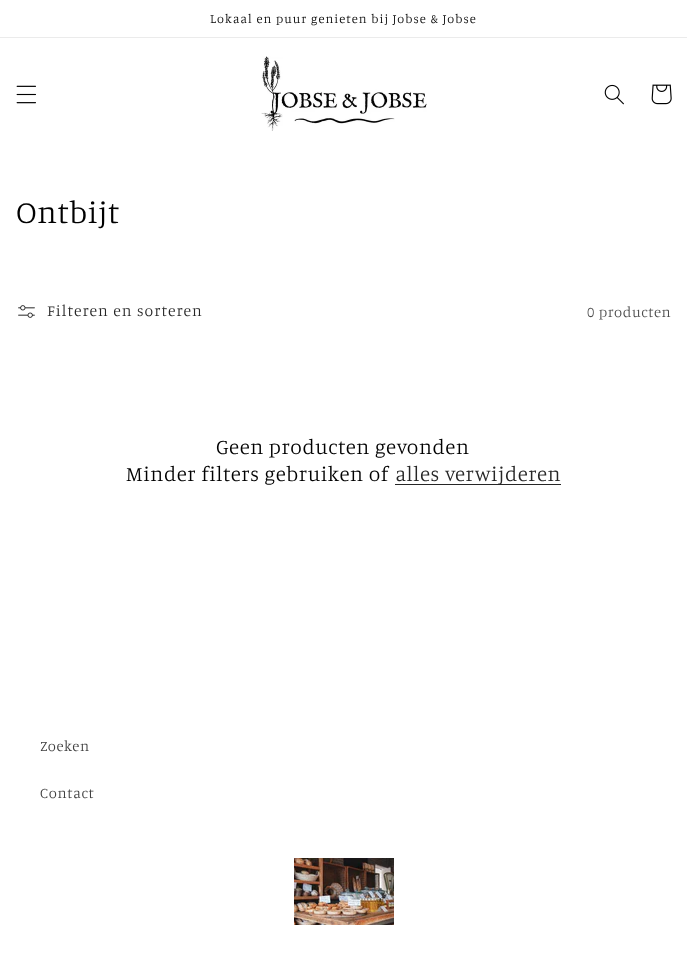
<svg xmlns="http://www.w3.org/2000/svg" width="687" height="974">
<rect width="100%" height="100%" fill="#fff"/>
<rect y="37" width="687" height="1" fill="#ebebeb"/>
<text x="210" y="23" style="font-family:Manuale;font-size:12.6px;font-weight:300;letter-spacing:1.05px;fill:#000">Lokaal en puur genieten bij Jobse &amp; Jobse</text>
<image x="16" y="85" width="20" height="19" href="media/1.png"/>
<image x="261" y="56" width="166" height="75" href="media/2.png"/>
<image x="604" y="84" width="20" height="21" href="media/3.png"/>
<image x="651" y="84" width="21" height="21" href="media/4.png"/>
<text x="16" y="223" style="font-family:Manuale;font-size:31.5px;font-weight:300;letter-spacing:0.6px;fill:#000">Ontbijt</text>
<image x="18" y="305" width="17" height="13" href="media/5.png"/>
<text x="47" y="316" style="font-family:Manuale;font-size:15.75px;font-weight:300;letter-spacing:1.05px;fill:#262626">Filteren en sorteren</text>
<text x="587" y="317" style="font-family:Manuale;font-size:14.75px;font-weight:300;letter-spacing:0.6px;fill:#4d4d4d">0 producten</text>
<text x="216" y="454" style="font-family:Manuale;font-size:21px;font-weight:300;letter-spacing:0.6px;fill:#000">Geen producten gevonden</text>
<text x="126" y="481" style="font-family:Manuale;font-size:21px;font-weight:300;letter-spacing:0.6px;fill:#000">Minder filters gebruiken of</text>
<rect x="395" y="484" width="166" height="1" fill="#262626"/>
<text x="395" y="481" style="font-family:Manuale;font-size:21px;font-weight:300;letter-spacing:0.6px;fill:#262626">alles verwijderen</text>
<text x="40" y="751" style="font-family:Manuale;font-size:14.75px;font-weight:300;letter-spacing:0.6px;fill:#404040">Zoeken</text>
<text x="40" y="798" style="font-family:Manuale;font-size:14.75px;font-weight:300;letter-spacing:0.6px;fill:#404040">Contact</text>
<image x="294" y="858" width="100" height="67" href="media/6.png"/>
</svg>
